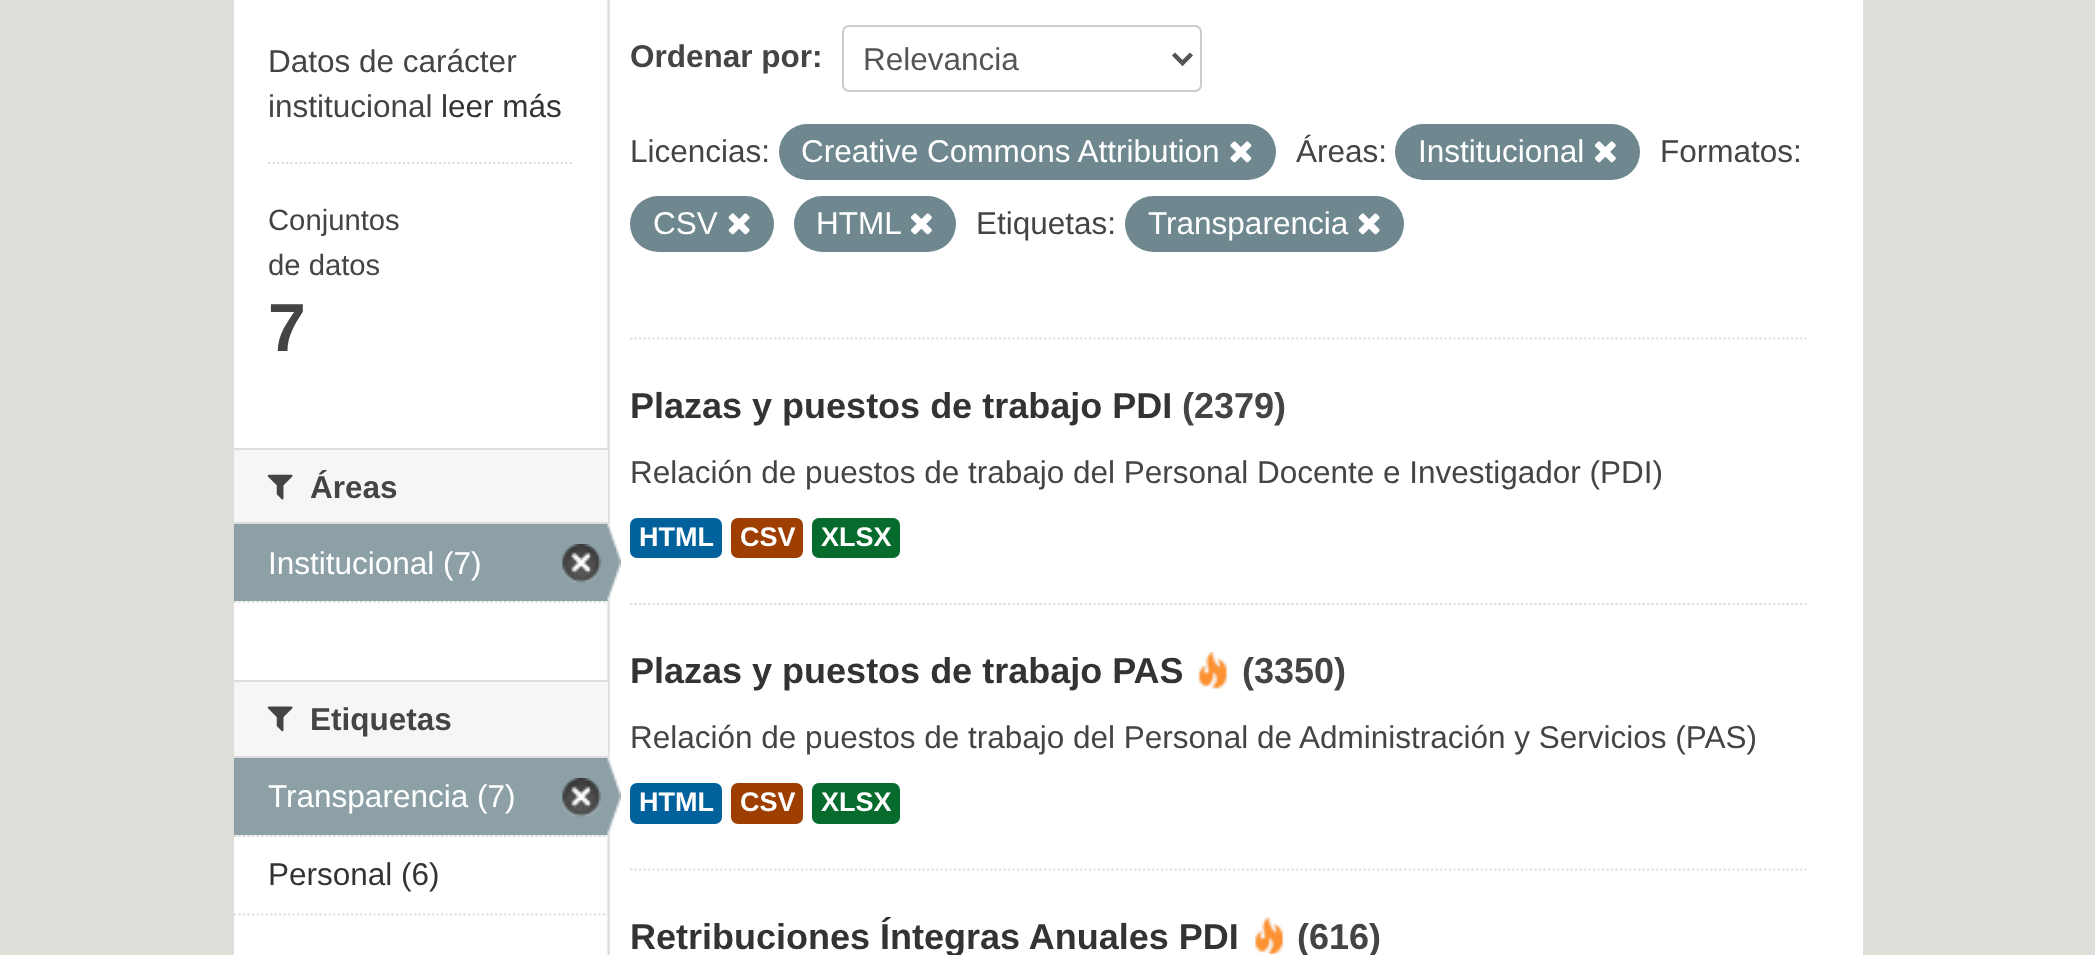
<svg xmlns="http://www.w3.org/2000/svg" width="2095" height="955">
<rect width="100%" height="100%" fill="#deded9"/>
<rect x="234" width="1629" height="955" fill="#fff"/>
<image x="606" y="0" width="4" height="955" href="media/1.png"/>
<text x="268" y="72" style="font-family:Liberation Sans;font-size:31.5px;fill:#444">Datos de carácter</text>
<text x="268" y="117" style="font-family:Liberation Sans;font-size:31.5px;fill:#444">institucional</text>
<text x="441" y="117" style="font-family:Liberation Sans;font-size:31.5px;fill:#333">leer más</text>
<path d="M268 163h306" fill="none" stroke="#ddd" stroke-width="2.2" stroke-dasharray="2.25 2.25"/>
<text x="268" y="230" style="font-family:Liberation Sans;font-size:29.25px;fill:#444">Conjuntos</text>
<text x="268" y="275" style="font-family:Liberation Sans;font-size:29.25px;fill:#444">de datos</text>
<text x="268" y="351" style="font-family:Liberation Sans;font-size:68px;font-weight:bold;fill:#444">7</text>
<rect x="234" y="450" width="374" height="72" fill="#f6f6f6"/>
<rect x="234" y="448" width="374" height="2" fill="#ddd"/>
<rect x="234" y="522" width="374" height="2" fill="#ddd"/>
<image x="267" y="474" width="26" height="26" href="media/2.png"/>
<text x="310" y="498" style="font-family:Liberation Sans;font-size:31.5px;font-weight:bold;fill:#444">Áreas</text>
<path d="M234 602h373.5" fill="none" stroke="#ddd" stroke-width="2.2" stroke-dasharray="2.25 2.25"/>
<rect x="234" y="524" width="374" height="77" fill="#8ca0a6"/>
<text x="268" y="574" style="font-family:Liberation Sans;font-size:31.5px;fill:#fff">Institucional (7)</text>
<image x="562" y="544" width="39" height="39" href="media/3.png"/>
<image x="607" y="523" width="14" height="78" href="media/4.png"/>
<rect x="234" y="682" width="374" height="74" fill="#f6f6f6"/>
<rect x="234" y="680" width="374" height="2" fill="#ddd"/>
<rect x="234" y="756" width="374" height="2" fill="#ddd"/>
<image x="267" y="706" width="26" height="26" href="media/5.png"/>
<text x="310" y="730" style="font-family:Liberation Sans;font-size:31.5px;font-weight:bold;fill:#444">Etiquetas</text>
<rect x="236" y="835" width="372" height="2" fill="#f6f6f6"/>
<path d="M234 836h373.5" fill="none" stroke="#ddd" stroke-width="2.2" stroke-dasharray="2.25 2.25"/>
<rect x="234" y="758" width="374" height="77" fill="#8ca0a6"/>
<text x="268" y="807" style="font-family:Liberation Sans;font-size:31.5px;fill:#fff">Transparencia (7)</text>
<image x="562" y="778" width="39" height="39" href="media/3.png"/>
<image x="607" y="757" width="14" height="78" href="media/4.png"/>
<path d="M234 914.5h373.5" fill="none" stroke="#ddd" stroke-width="2.2" stroke-dasharray="2.25 2.25"/>
<text x="268" y="885" style="font-family:Liberation Sans;font-size:31.5px;fill:#333">Personal (6)</text>
<path d="M630 338.5h1177" fill="none" stroke="#ddd" stroke-width="2.2" stroke-dasharray="2.25 2.25"/>
<text x="630" y="67" style="font-family:Liberation Sans;font-size:31.5px;font-weight:bold;fill:#444">Ordenar por:</text>
<rect x="843" y="26" width="358" height="65" rx="6" fill="none" stroke="#ccc" stroke-width="2"/>
<path d="M1173.5 54l9 9l9-9" fill="none" stroke="#555" stroke-width="4.5"/>
<text x="863" y="70" style="font-family:Liberation Sans;font-size:31.5px;fill:#555">Relevancia</text>
<text x="630" y="162" style="font-family:Liberation Sans;font-size:31.5px;fill:#444">Licencias:</text>
<rect x="779" y="124" width="497" height="56" rx="28" fill="#6f8890"/>
<text x="801" y="162" style="font-family:Liberation Sans;font-size:31.5px;fill:#fff">Creative Commons Attribution</text>
<image x="1230" y="141" width="22" height="22" href="media/6.png"/>
<text x="1296" y="162" style="font-family:Liberation Sans;font-size:31.5px;fill:#444">Áreas:</text>
<rect x="1395" y="124" width="245" height="56" rx="28" fill="#6f8890"/>
<text x="1418" y="162" style="font-family:Liberation Sans;font-size:31.5px;fill:#fff">Institucional</text>
<image x="1595" y="141" width="21" height="22" href="media/7.png"/>
<text x="1660" y="162" style="font-family:Liberation Sans;font-size:31.5px;fill:#444">Formatos:</text>
<rect x="630" y="196" width="144" height="56" rx="28" fill="#6f8890"/>
<text x="653" y="234" style="font-family:Liberation Sans;font-size:31.5px;fill:#fff">CSV</text>
<image x="728" y="213" width="22" height="22" href="media/8.png"/>
<rect x="794" y="196" width="162" height="56" rx="28" fill="#6f8890"/>
<text x="816" y="234" style="font-family:Liberation Sans;font-size:31.5px;fill:#fff">HTML</text>
<image x="911" y="213" width="21" height="22" href="media/7.png"/>
<text x="976" y="234" style="font-family:Liberation Sans;font-size:31.5px;fill:#444">Etiquetas:</text>
<rect x="1125" y="196" width="279" height="56" rx="28" fill="#6f8890"/>
<text x="1148" y="234" style="font-family:Liberation Sans;font-size:31.5px;fill:#fff">Transparencia</text>
<image x="1358" y="213" width="22" height="22" href="media/8.png"/>
<path d="M630 604h1177" fill="none" stroke="#ddd" stroke-width="2.2" stroke-dasharray="2.25 2.25"/>
<text x="630" y="418" style="font-family:Liberation Sans;font-size:36px;font-weight:bold;fill:#333">Plazas y puestos de trabajo PDI</text>
<text x="1182" y="418" style="font-family:Liberation Sans;font-size:36px;font-weight:bold;fill:#444">(2379)</text>
<text x="630" y="483" style="font-family:Liberation Sans;font-size:31.5px;fill:#444">Relación de puestos de trabajo del Personal Docente e Investigador (PDI)</text>
<rect x="630" y="518" width="92" height="40" rx="7" fill="#00619c"/>
<text x="639" y="546" style="font-family:Liberation Sans;font-size:27px;font-weight:bold;fill:#fff">HTML</text>
<rect x="731" y="518" width="72" height="40" rx="7" fill="#9e3f01"/>
<text x="740" y="546" style="font-family:Liberation Sans;font-size:27px;font-weight:bold;fill:#fff">CSV</text>
<rect x="812" y="518" width="88" height="40" rx="7" fill="#086b2e"/>
<text x="821" y="546" style="font-family:Liberation Sans;font-size:27px;font-weight:bold;fill:#fff">XLSX</text>
<path d="M630 869.5h1177" fill="none" stroke="#ddd" stroke-width="2.2" stroke-dasharray="2.25 2.25"/>
<text x="630" y="683" style="font-family:Liberation Sans;font-size:36px;font-weight:bold;fill:#333">Plazas y puestos de trabajo PAS</text>
<image x="1198" y="652" width="30" height="37" href="media/9.png"/>
<text x="1242" y="683" style="font-family:Liberation Sans;font-size:36px;font-weight:bold;fill:#444">(3350)</text>
<text x="630" y="748" style="font-family:Liberation Sans;font-size:31.5px;fill:#444">Relación de puestos de trabajo del Personal de Administración y Servicios (PAS)</text>
<rect x="630" y="783" width="92" height="41" rx="7" fill="#00619c"/>
<text x="639" y="811" style="font-family:Liberation Sans;font-size:27px;font-weight:bold;fill:#fff">HTML</text>
<rect x="731" y="783" width="72" height="41" rx="7" fill="#9e3f01"/>
<text x="740" y="811" style="font-family:Liberation Sans;font-size:27px;font-weight:bold;fill:#fff">CSV</text>
<rect x="812" y="783" width="88" height="41" rx="7" fill="#086b2e"/>
<text x="821" y="811" style="font-family:Liberation Sans;font-size:27px;font-weight:bold;fill:#fff">XLSX</text>
<text x="630" y="949" style="font-family:Liberation Sans;font-size:36px;font-weight:bold;fill:#333">Retribuciones Íntegras Anuales PDI</text>
<image x="1255" y="917" width="29" height="38" href="media/10.png"/>
<text x="1297" y="949" style="font-family:Liberation Sans;font-size:36px;font-weight:bold;fill:#444">(616)</text>
</svg>
